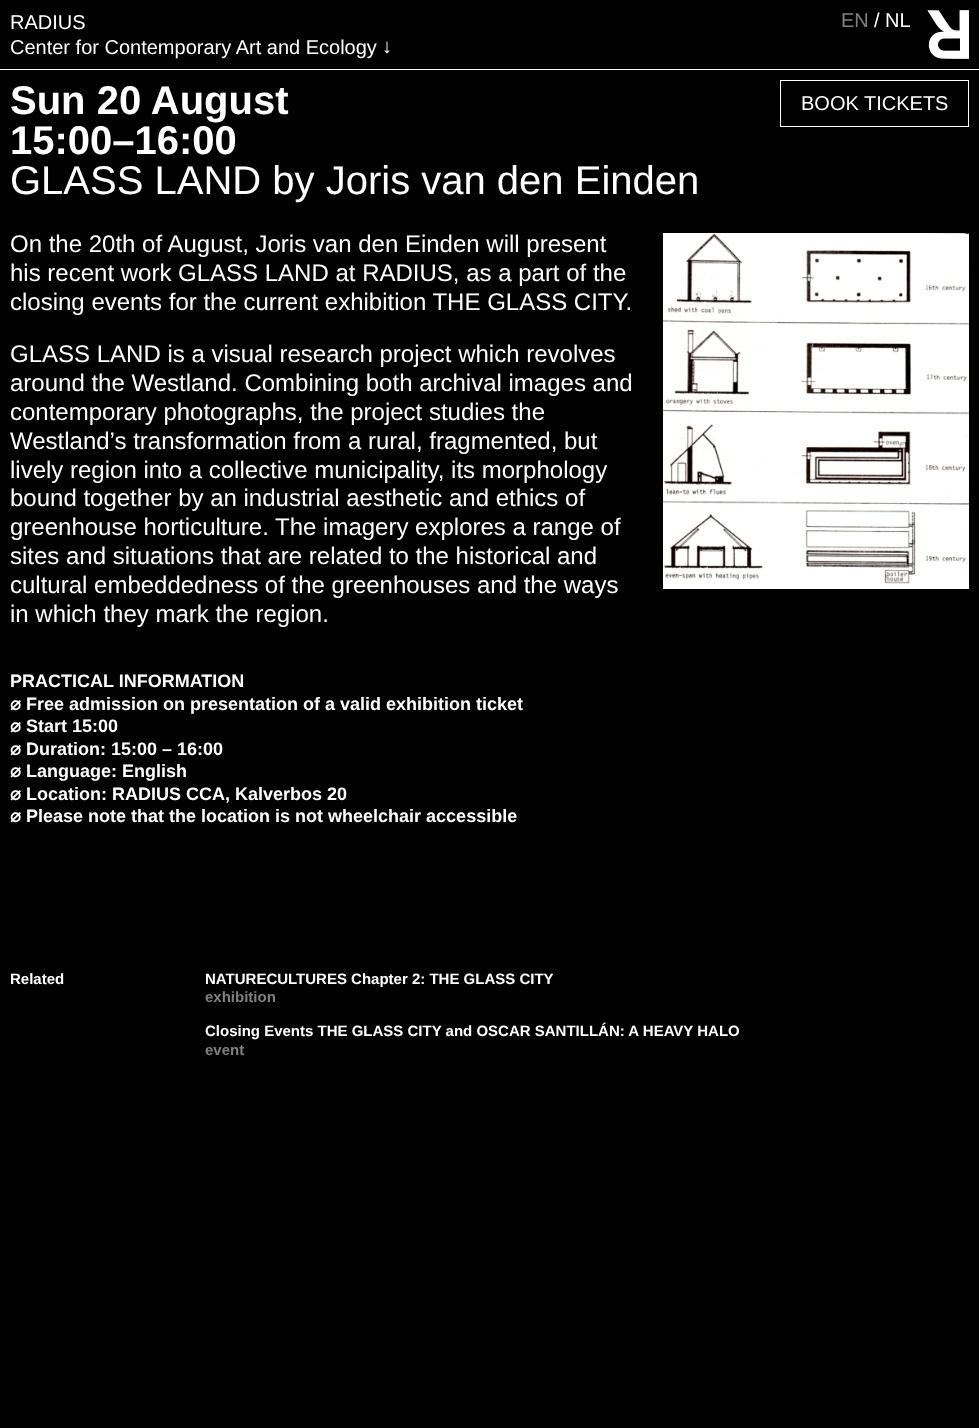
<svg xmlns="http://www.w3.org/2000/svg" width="979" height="1428">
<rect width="100%" height="100%" fill="#000"/>
<rect y="69" width="979" height="1" fill="#fff"/>
<text x="10" y="29" style="font-family:Liberation Sans;font-size:20px;fill:#fff">RADIUS</text>
<text x="10" y="54" style="font-family:Liberation Sans;font-size:20px;fill:#fff">Center for Contemporary Art and Ecology</text>
<text x="382" y="53" style="font-family:Liberation Sans;font-size:20px;fill:#fff">↓</text>
<text x="841" y="27" style="font-family:Liberation Sans;font-size:20px;fill:#808080">EN</text>
<text x="874" y="27" style="font-family:Liberation Sans;font-size:20px;fill:#fff">/ NL</text>
<image x="927" y="10" width="42" height="49" href="media/1.png"/>
<text x="10" y="114" style="font-family:Liberation Sans;font-size:40px;font-weight:bold;fill:#fff">Sun 20 August</text>
<text x="10" y="154" style="font-family:Liberation Sans;font-size:40px;font-weight:bold;fill:#fff">15:00–16:00</text>
<text x="10" y="194" style="font-family:Liberation Sans;font-size:40px;fill:#fff">GLASS LAND by Joris van den Einden</text>
<rect x="780.5" y="80.5" width="188" height="46" fill="none" stroke="#fff"/>
<text x="801" y="110" style="font-family:Liberation Sans;font-size:20px;fill:#fff">BOOK TICKETS</text>
<text x="10" y="252" style="font-family:Liberation Sans;font-size:24px;fill:#fff">On the 20th of August, Joris van den Einden will present</text>
<text x="10" y="281" style="font-family:Liberation Sans;font-size:24px;fill:#fff">his recent work GLASS LAND at RADIUS, as a part of the</text>
<text x="10" y="310" style="font-family:Liberation Sans;font-size:24px;fill:#fff">closing events for the current exhibition THE GLASS CITY.</text>
<text x="10" y="362" style="font-family:Liberation Sans;font-size:24px;fill:#fff">GLASS LAND is a visual research project which revolves</text>
<text x="10" y="391" style="font-family:Liberation Sans;font-size:24px;fill:#fff">around the Westland. Combining both archival images and</text>
<text x="10" y="420" style="font-family:Liberation Sans;font-size:24px;fill:#fff">contemporary photographs, the project studies the</text>
<text x="10" y="449" style="font-family:Liberation Sans;font-size:24px;fill:#fff">Westland’s transformation from a rural, fragmented, but</text>
<text x="10" y="478" style="font-family:Liberation Sans;font-size:24px;fill:#fff">lively region into a collective municipality, its morphology</text>
<text x="10" y="506" style="font-family:Liberation Sans;font-size:24px;fill:#fff">bound together by an industrial aesthetic and ethics of</text>
<text x="10" y="535" style="font-family:Liberation Sans;font-size:24px;fill:#fff">greenhouse horticulture. The imagery explores a range of</text>
<text x="10" y="564" style="font-family:Liberation Sans;font-size:24px;fill:#fff">sites and situations that are related to the historical and</text>
<text x="10" y="593" style="font-family:Liberation Sans;font-size:24px;fill:#fff">cultural embeddedness of the greenhouses and the ways</text>
<text x="10" y="622" style="font-family:Liberation Sans;font-size:24px;fill:#fff">in which they mark the region.</text>
<text x="10" y="687" style="font-family:Liberation Sans;font-size:18px;font-weight:bold;fill:#fff">PRACTICAL INFORMATION</text>
<text x="10" y="710" style="font-family:DejaVu Sans;font-size:18px;font-weight:bold;fill:#fff">⌀</text>
<text x="26" y="710" style="font-family:Liberation Sans;font-size:18px;font-weight:bold;fill:#fff">Free admission on presentation of a valid exhibition ticket</text>
<text x="10" y="732" style="font-family:DejaVu Sans;font-size:18px;font-weight:bold;fill:#fff">⌀</text>
<text x="26" y="732" style="font-family:Liberation Sans;font-size:18px;font-weight:bold;fill:#fff">Start 15:00</text>
<text x="10" y="755" style="font-family:DejaVu Sans;font-size:18px;font-weight:bold;fill:#fff">⌀</text>
<text x="26" y="755" style="font-family:Liberation Sans;font-size:18px;font-weight:bold;fill:#fff">Duration: 15:00 – 16:00</text>
<text x="10" y="777" style="font-family:DejaVu Sans;font-size:18px;font-weight:bold;fill:#fff">⌀</text>
<text x="26" y="777" style="font-family:Liberation Sans;font-size:18px;font-weight:bold;fill:#fff">Language: English</text>
<text x="10" y="800" style="font-family:DejaVu Sans;font-size:18px;font-weight:bold;fill:#fff">⌀</text>
<text x="26" y="800" style="font-family:Liberation Sans;font-size:18px;font-weight:bold;fill:#fff">Location: RADIUS CCA, Kalverbos 20</text>
<text x="10" y="822" style="font-family:DejaVu Sans;font-size:18px;font-weight:bold;fill:#fff">⌀</text>
<text x="26" y="822" style="font-family:Liberation Sans;font-size:18px;font-weight:bold;fill:#fff">Please note that the location is not wheelchair accessible</text>
<image x="663" y="233" width="306" height="356" href="media/2.png"/>
<text x="10" y="984" style="font-family:Liberation Sans;font-size:15px;font-weight:bold;fill:#fff">Related</text>
<text x="205" y="984" style="font-family:Liberation Sans;font-size:15px;font-weight:bold;fill:#fff">NATURECULTURES Chapter 2: THE GLASS CITY</text>
<text x="205" y="1002" style="font-family:Liberation Sans;font-size:15px;font-weight:bold;fill:#808080">exhibition</text>
<text x="205" y="1036" style="font-family:Liberation Sans;font-size:15px;font-weight:bold;fill:#fff">Closing Events THE GLASS CITY and OSCAR SANTILLÁN: A HEAVY HALO</text>
<text x="205" y="1055" style="font-family:Liberation Sans;font-size:15px;font-weight:bold;fill:#808080">event</text>
</svg>
